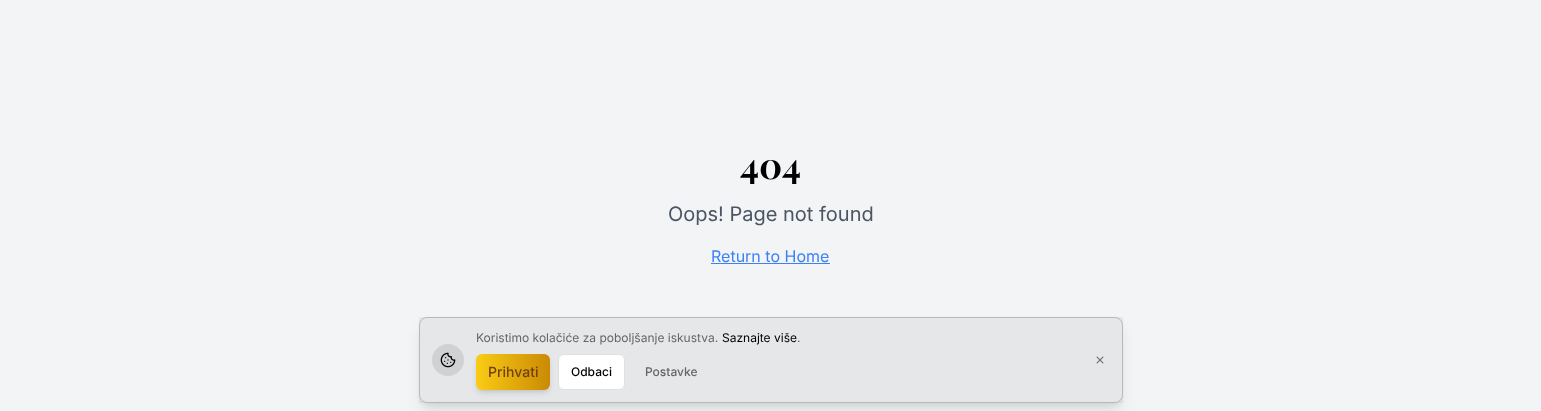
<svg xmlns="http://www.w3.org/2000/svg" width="1541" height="411">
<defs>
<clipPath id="clip1"><path d="M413 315h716v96h-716zm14 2h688c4.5 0 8 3.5 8 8v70c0 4.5-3.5 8-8 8h-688c-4.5 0-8-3.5-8-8v-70c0-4.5 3.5-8 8-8z" clip-rule="evenodd"/></clipPath>
<clipPath id="clip2"><path d="M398 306h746v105h-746zm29 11h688c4.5 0 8 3.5 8 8v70c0 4.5-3.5 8-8 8h-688c-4.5 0-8-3.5-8-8v-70c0-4.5 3.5-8 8-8z" clip-rule="evenodd"/></clipPath>
<linearGradient id="g1" gradientUnits="userSpaceOnUse" x1="476" y1="372" x2="550" y2="372"><stop offset="0" stop-color="#facc15"/><stop offset="1" stop-color="#ca8a04"/></linearGradient>
</defs>
<rect width="100%" height="100%" fill="#f3f4f6"/>
<text x="740" y="179" style="font-family:Playfair Display;font-size:36px;font-weight:bold;fill:#000">404</text>
<text x="668" y="221" style="font-family:Inter;font-size:20px;fill:#4b5563">Oops! Page not found</text>
<text x="711" y="262" style="font-family:Inter;font-size:16px;fill:#3b82f6">Return to Home</text>
<rect x="711" y="263" width="119" height="1" fill="#3b82f6"/>
<g clip-path="url(#clip1)">
<rect x="423" y="325" width="696" height="78" rx="4" fill="#0000001a" filter="blur(3px)"/>
</g>
<g clip-path="url(#clip2)">
<rect x="422" y="330" width="698" height="80" rx="5" fill="#0000001a" filter="blur(7.5px)"/>
</g>
<rect x="419" y="317" width="704" height="86" fill="#0000000d"/>
<rect x="419.5" y="317.5" width="703" height="85" rx="7.5" fill="none" stroke="#00000033"/>
<circle cx="448" cy="360" r="16" fill="#d0d1d2"/>
<image x="440" y="352" width="16" height="16" href="media/1.png"/>
<text x="476" y="342" style="font-family:Inter;font-size:12px;fill:#666">Koristimo kolačiće za poboljšanje iskustva.</text>
<text x="722" y="342" style="font-family:Inter;font-size:12px;fill:#000">Saznajte više</text>
<text x="797" y="342" style="font-family:Inter;font-size:12px;fill:#666">.</text>
<rect x="478" y="358" width="70" height="32" rx="4" fill="#0000001a" filter="blur(2px)"/>
<rect x="477" y="359" width="72" height="34" rx="5" fill="#0000001a" filter="blur(3px)"/>
<rect x="476" y="354" width="74" height="36" rx="6" fill="url(#g1)"/>
<text x="488" y="377" style="font-family:Inter;font-size:14px;font-weight:500;fill:#713f12">Prihvati</text>
<rect x="558" y="354" width="67" height="36" rx="6" fill="#fff"/>
<rect x="558.5" y="354.5" width="66" height="35" rx="5.5" fill="none" stroke="#66666633"/>
<text x="571" y="376" style="font-family:Inter;font-size:12px;font-weight:500;fill:#000">Odbaci</text>
<text x="645" y="376" style="font-family:Inter;font-size:12px;font-weight:500;fill:#666">Postavke</text>
<image x="1096" y="356" width="8" height="8" href="media/2.png"/>
</svg>
